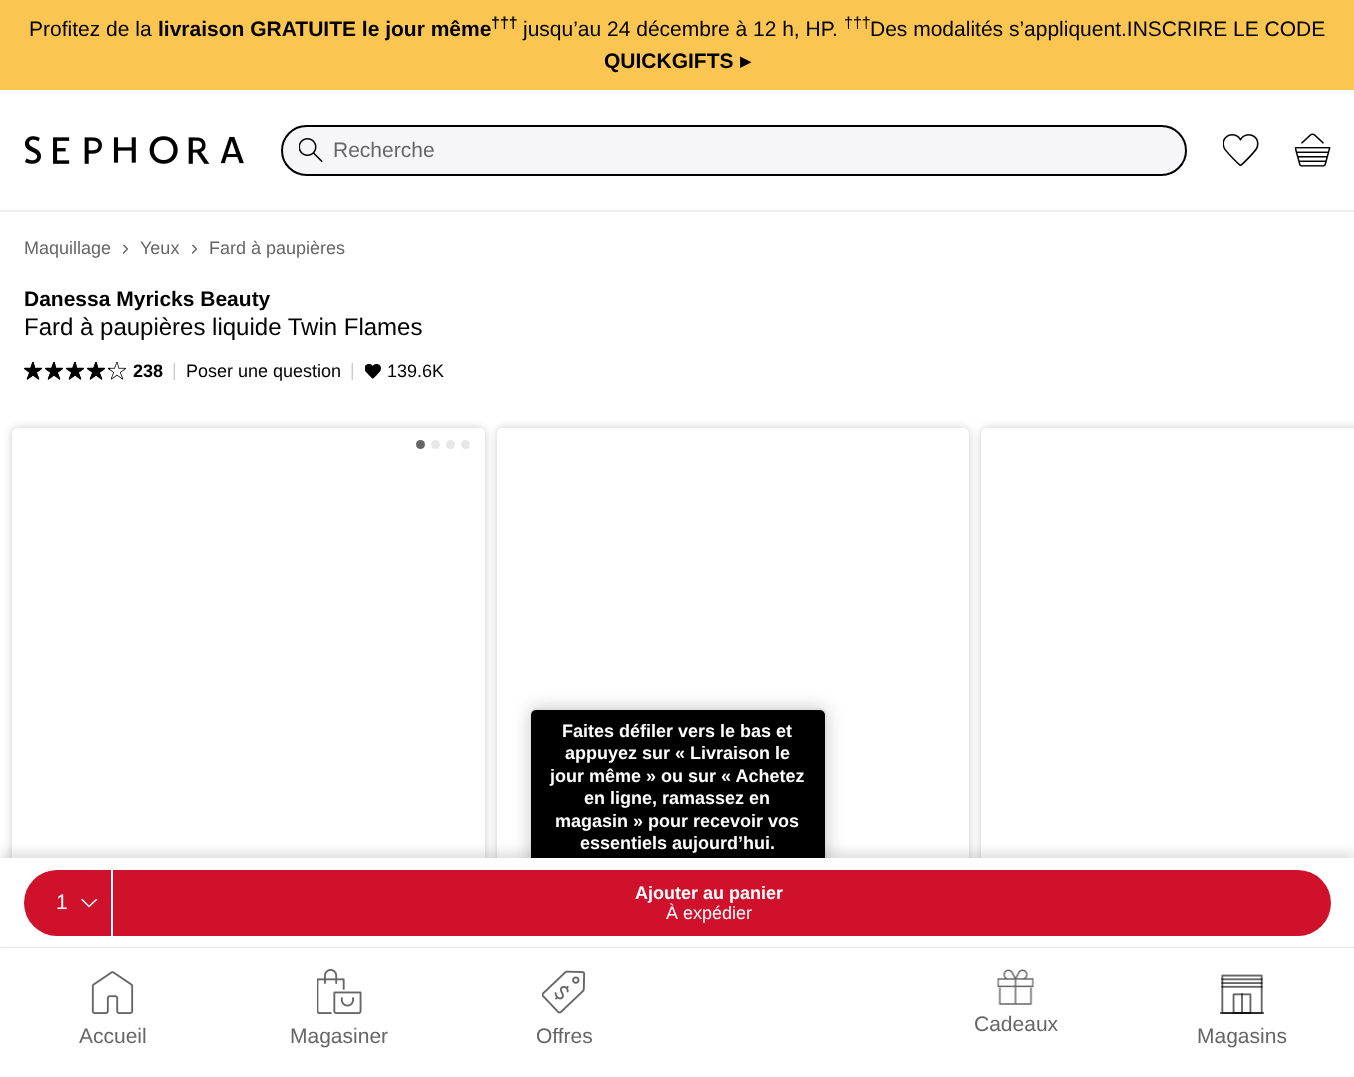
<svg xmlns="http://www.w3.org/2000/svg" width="1354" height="1077">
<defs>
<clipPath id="clip1"><path d="M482 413h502v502h-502zm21 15h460c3.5 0 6 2.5 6 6v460c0 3.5-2.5 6-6 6h-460c-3.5 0-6-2.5-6-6v-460c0-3.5 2.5-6 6-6z" clip-rule="evenodd"/></clipPath>
<clipPath id="clip2"><path d="M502 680h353v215h-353zm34 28h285c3.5 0 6 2.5 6 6v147c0 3.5-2.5 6-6 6h-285c-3.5 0-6-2.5-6-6v-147c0-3.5 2.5-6 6-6z" clip-rule="evenodd"/></clipPath>
<clipPath id="clip3"><rect x="123" y="245" width="5" height="9"/></clipPath>
<clipPath id="clip4"><rect x="192" y="245" width="5" height="9"/></clipPath>
<clipPath id="clip5"><path d="M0 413h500v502h-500zm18 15h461c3.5 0 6 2.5 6 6v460c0 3.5-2.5 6-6 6h-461c-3.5 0-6-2.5-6-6v-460c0-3.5 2.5-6 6-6z" clip-rule="evenodd"/></clipPath>
<clipPath id="clip6"><path d="M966 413h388v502h-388zm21 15h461c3.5 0 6 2.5 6 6v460c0 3.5-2.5 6-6 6h-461c-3.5 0-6-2.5-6-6v-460c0-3.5 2.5-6 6-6z" clip-rule="evenodd"/></clipPath>
<clipPath id="clip7"><rect x="81" y="899" width="17" height="9"/></clipPath>
</defs>
<rect width="100%" height="100%" fill="#fff"/>
<rect width="1354" height="90" fill="#fac551"/>
<text x="29" y="36" style="font-family:Liberation Sans;font-size:21px;fill:#000">Profitez de la</text>
<text x="158" y="36" style="font-family:Liberation Sans;font-size:21px;font-weight:bold;fill:#000">livraison GRATUITE le jour même</text>
<text x="491" y="28" style="font-family:Liberation Sans;font-size:16px;font-weight:bold;fill:#000">†††</text>
<text x="523" y="36" style="font-family:Liberation Sans;font-size:21px;fill:#000">jusqu’au 24 décembre à 12 h, HP.</text>
<text x="844" y="28" style="font-family:Liberation Sans;font-size:16px;fill:#000">†††</text>
<text x="870" y="36" style="font-family:Liberation Sans;font-size:21px;fill:#000">Des modalités s’appliquent.INSCRIRE LE CODE</text>
<text x="604" y="68" style="font-family:Liberation Sans;font-size:21px;font-weight:bold;fill:#000">QUICKGIFTS</text>
<text x="740" y="68" style="font-family:DejaVu Sans;font-size:21px;font-weight:bold;fill:#000">▸</text>
<rect y="210" width="1354" height="2" fill="#eee"/>
<image x="24" y="136" width="220" height="28" href="media/1.png"/>
<rect x="282" y="126" width="904" height="49" rx="24.5" fill="#f6f6f8" stroke="#000" stroke-width="2"/>
<image x="299" y="138" width="24" height="24" href="media/2.png"/>
<text x="333" y="157" style="font-family:Liberation Sans;font-size:21px;fill:#666">Recherche</text>
<image x="1223" y="134" width="36" height="32" href="media/3.png"/>
<image x="1295" y="133" width="36" height="34" href="media/4.png"/>
<g clip-path="url(#clip1)">
<rect x="497" y="428" width="472" height="472" rx="6" fill="#00000033" filter="blur(4.5px)"/>
</g>
<g clip-path="url(#clip2)">
<rect x="530" y="708" width="297" height="159" rx="6" fill="#00000033" filter="blur(9px)"/>
</g>
<rect x="531" y="710" width="294" height="156" rx="5" fill="#000"/>
<rect x="531" y="709" width="295" height="157" rx="5" fill="none" stroke="#0000001f" stroke-width="2"/>
<rect y="852" width="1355" height="90" fill="#0000001f" filter="blur(6px)"/>
<path d="M0 947v1h1354v128h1v-129z" fill="#e6e6e6"/>
<rect x="2" y="948" width="1351" height="2" fill="#fff"/>
<image x="997" y="969" width="37" height="36" href="media/5.png"/>
<text x="974" y="1031" style="font-family:Liberation Sans;font-size:21px;fill:#666">Cadeaux</text>
<image x="91" y="971" width="43" height="43" href="media/6.png"/>
<text x="79" y="1043" style="font-family:Liberation Sans;font-size:21px;fill:#666">Accueil</text>
<image x="317" y="969" width="45" height="45" href="media/7.png"/>
<text x="290" y="1043" style="font-family:Liberation Sans;font-size:21px;fill:#666">Magasiner</text>
<image x="542" y="970" width="44" height="44" href="media/8.png"/>
<text x="536" y="1043" style="font-family:Liberation Sans;font-size:21px;fill:#666">Offres</text>
<image x="1220" y="974" width="44" height="40" href="media/9.png"/>
<text x="1197" y="1043" style="font-family:Liberation Sans;font-size:21px;fill:#666">Magasins</text>
<text x="24" y="254" style="font-family:Liberation Sans;font-size:18px;fill:#666">Maquillage</text>
<g clip-path="url(#clip3)">
<path d="M123.5 253l4-4l-4-4" fill="none" stroke="#666" stroke-width="1.5" stroke-linecap="round" stroke-linejoin="round"/>
</g>
<text x="140" y="254" style="font-family:Liberation Sans;font-size:18px;fill:#666">Yeux</text>
<g clip-path="url(#clip4)">
<path d="M192.5 253l4-4l-4-4" fill="none" stroke="#666" stroke-width="1.5" stroke-linecap="round" stroke-linejoin="round"/>
</g>
<text x="209" y="254" style="font-family:Liberation Sans;font-size:18px;fill:#666">Fard à paupières</text>
<text x="24" y="306" style="font-family:Liberation Sans;font-size:21px;font-weight:bold;fill:#000">Danessa Myricks Beauty</text>
<text x="24" y="335" style="font-family:Liberation Sans;font-size:24px;fill:#000">Fard à paupières liquide Twin Flames</text>
<image x="24" y="362" width="18" height="18" href="media/10.png"/>
<image x="45" y="362" width="18" height="18" href="media/10.png"/>
<image x="66" y="362" width="18" height="18" href="media/10.png"/>
<image x="87" y="362" width="18" height="18" href="media/10.png"/>
<image x="108" y="362" width="18" height="18" href="media/10.png"/>
<image x="24" y="362" width="18" height="18" href="media/11.png"/>
<image x="45" y="362" width="18" height="18" href="media/11.png"/>
<image x="66" y="362" width="18" height="18" href="media/11.png"/>
<image x="87" y="362" width="18" height="18" href="media/11.png"/>
<image x="108" y="367" width="2" height="4" href="media/12.png"/>
<text x="133" y="377" style="font-family:Liberation Sans;font-size:18px;font-weight:bold;fill:#000">238</text>
<text x="172" y="376" style="font-family:Liberation Sans;font-size:18px;fill:#ccc">|</text>
<text x="186" y="377" style="font-family:Liberation Sans;font-size:18px;fill:#000">Poser une question</text>
<text x="350" y="376" style="font-family:Liberation Sans;font-size:18px;fill:#ccc">|</text>
<image x="365" y="363" width="16" height="16" href="media/13.png"/>
<text x="387" y="377" style="font-family:Liberation Sans;font-size:18px;fill:#000">139.6K</text>
<g clip-path="url(#clip5)">
<rect x="12" y="428" width="473" height="472" rx="6" fill="#00000033" filter="blur(4.5px)"/>
</g>
<g clip-path="url(#clip6)">
<rect x="981" y="428" width="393" height="472" rx="6" fill="#00000033" filter="blur(4.5px)"/>
</g>
<circle cx="420.5" cy="444.5" r="4.5" fill="#666"/>
<circle cx="435.5" cy="444.5" r="4.5" fill="#e7e7e7"/>
<circle cx="450.5" cy="444.5" r="4.5" fill="#e7e7e7"/>
<circle cx="465.5" cy="444.5" r="4.5" fill="#e7e7e7"/>
<text x="562" y="737" style="font-family:Liberation Sans;font-size:18px;font-weight:bold;fill:#fff">Faites défiler vers le bas et</text>
<text x="565" y="759" style="font-family:Liberation Sans;font-size:18px;font-weight:bold;fill:#fff">appuyez sur « Livraison le</text>
<text x="550" y="782" style="font-family:Liberation Sans;font-size:18px;font-weight:bold;fill:#fff">jour même » ou sur « Achetez</text>
<text x="584" y="804" style="font-family:Liberation Sans;font-size:18px;font-weight:bold;fill:#fff">en ligne, ramassez en</text>
<text x="555" y="827" style="font-family:Liberation Sans;font-size:18px;font-weight:bold;fill:#fff">magasin » pour recevoir vos</text>
<text x="580" y="849" style="font-family:Liberation Sans;font-size:18px;font-weight:bold;fill:#fff">essentiels aujourd’hui.</text>
<rect y="858" width="1354" height="89" fill="#fff"/>
<rect x="24" y="870" width="1307" height="66" rx="33" fill="#cf112c"/>
<rect x="111" y="870" width="2" height="66" fill="#fff"/>
<text x="56" y="909" style="font-family:Liberation Sans;font-size:21px;fill:#fff">1</text>
<g clip-path="url(#clip7)">
<path d="M82 899.5l7 7l7.5-7" fill="none" stroke="#fff" stroke-width="1.5" stroke-linecap="round" stroke-linejoin="round"/>
</g>
<text x="635" y="899" style="font-family:Liberation Sans;font-size:18px;font-weight:bold;fill:#fff">Ajouter au panier</text>
<text x="666" y="919" style="font-family:Liberation Sans;font-size:18px;fill:#fff">À expédier</text>
</svg>
